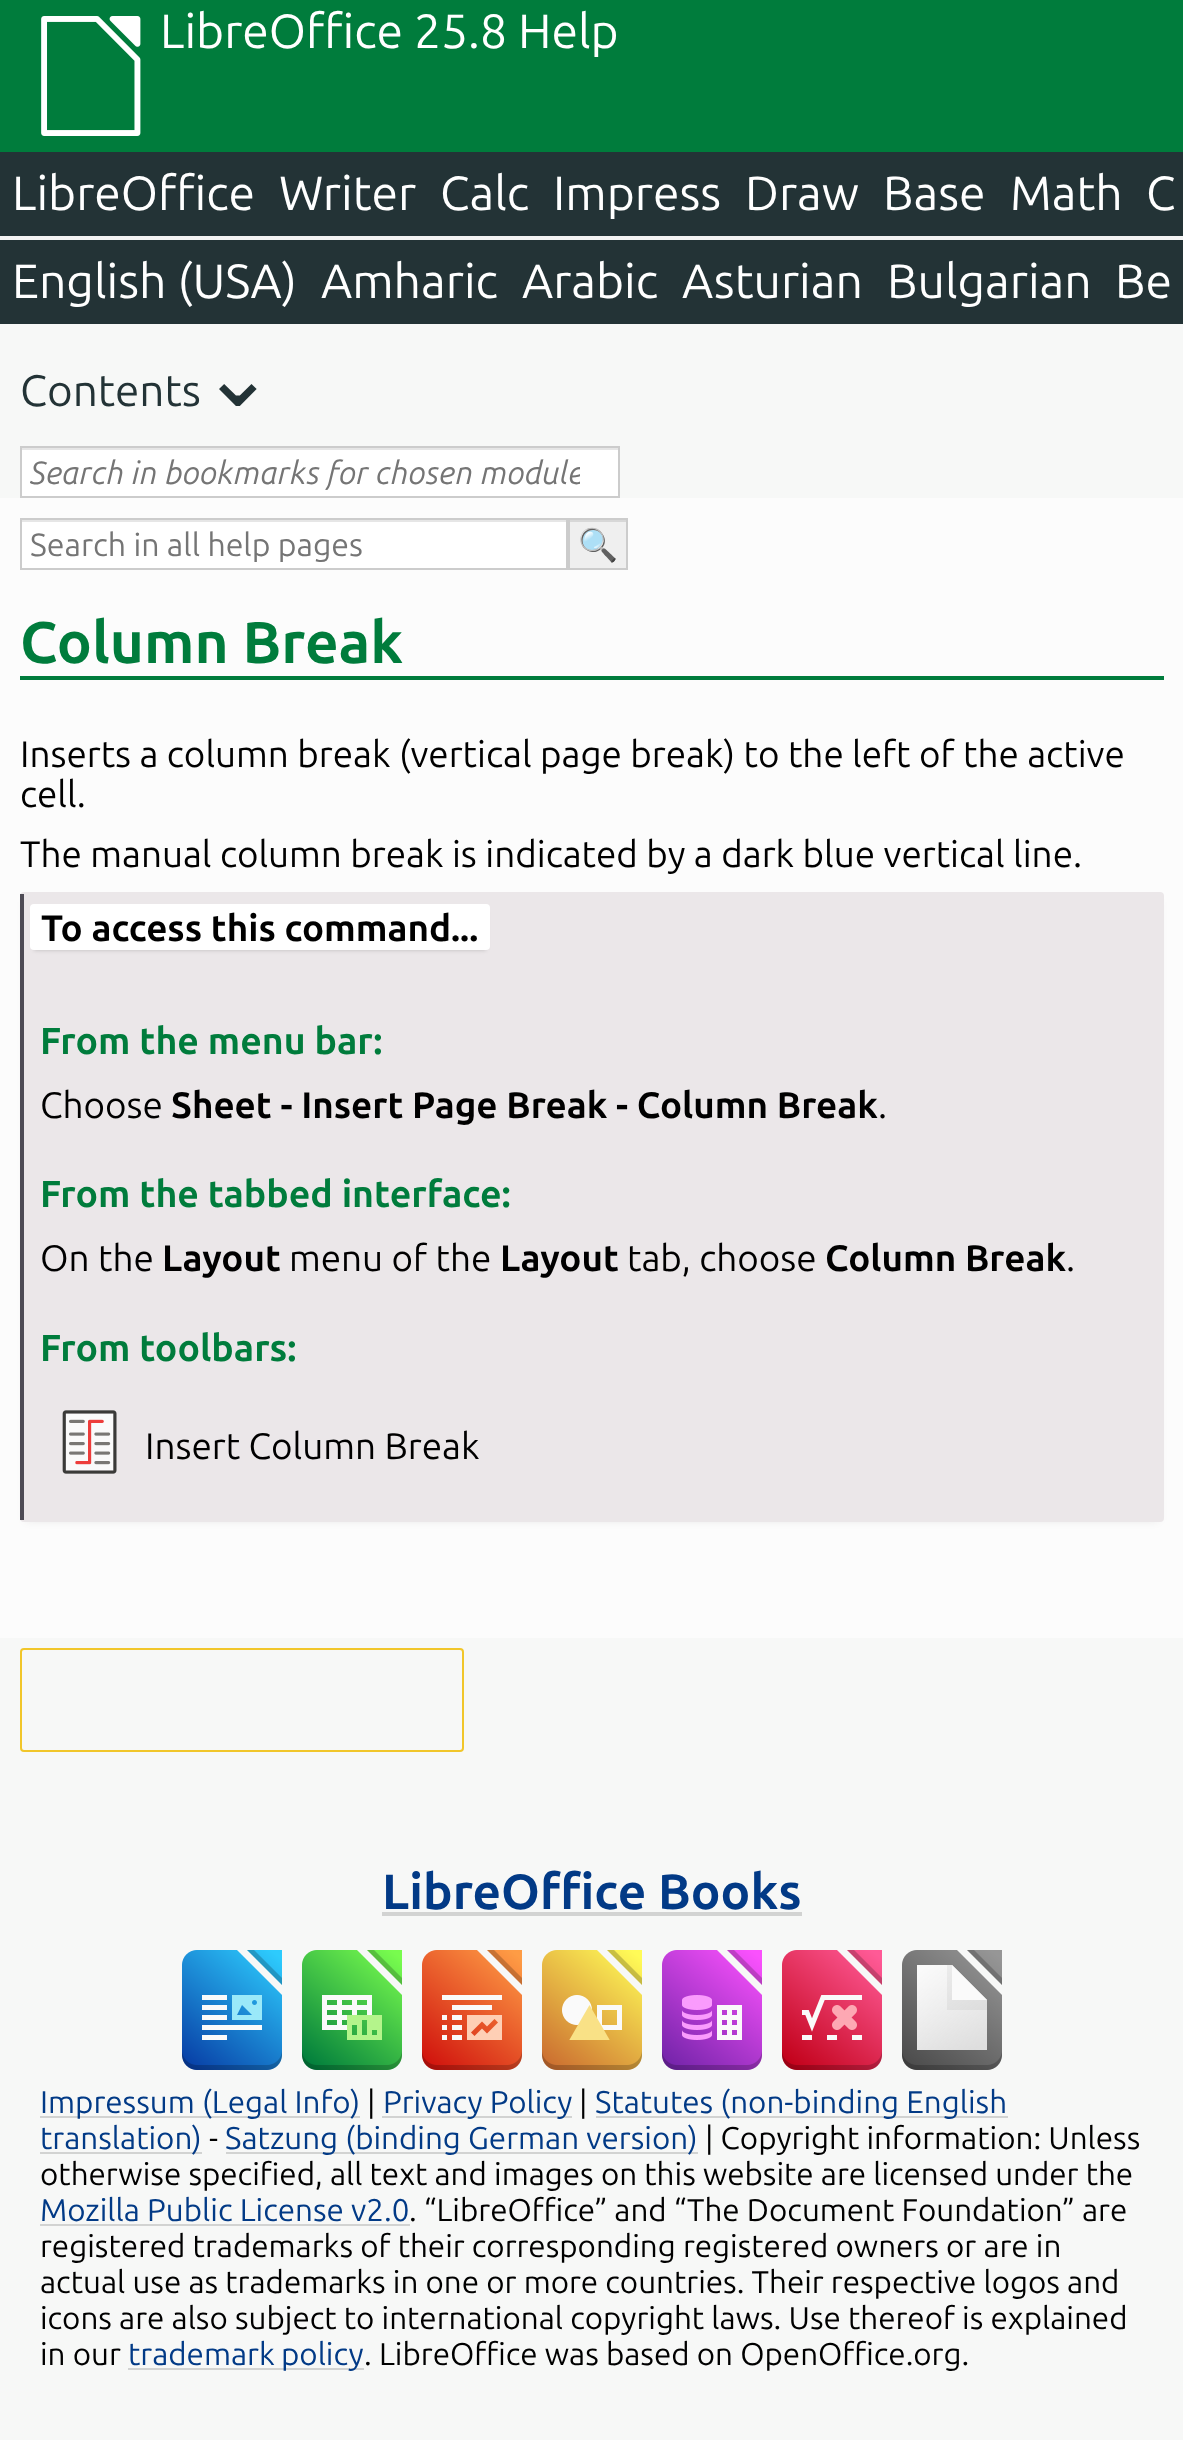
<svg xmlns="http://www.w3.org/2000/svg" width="1183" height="2440">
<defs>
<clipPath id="clip1"><rect x="30" y="454" width="550" height="36"/></clipPath>
</defs>
<rect width="100%" height="100%" fill="#f7f8f7"/>
<rect width="1183" height="152" fill="#007c3c"/>
<image x="41" y="16" width="100" height="120" href="media/1.png"/>
<text x="160" y="48" style="font-family:Ubuntu;font-size:48px;fill:#fff">LibreOffice 25.8 Help</text>
<rect y="152" width="1183" height="84" fill="#233336"/>
<rect y="236" width="1183" height="4" fill="#f3f3f3"/>
<text x="12" y="210" style="font-family:Ubuntu;font-size:48px;fill:#fff">LibreOffice</text>
<text x="279" y="210" style="font-family:Ubuntu;font-size:48px;fill:#fff">Writer</text>
<text x="440" y="210" style="font-family:Ubuntu;font-size:48px;fill:#fff">Calc</text>
<text x="553" y="210" style="font-family:Ubuntu;font-size:48px;fill:#fff">Impress</text>
<text x="745" y="210" style="font-family:Ubuntu;font-size:48px;fill:#fff">Draw</text>
<text x="883" y="210" style="font-family:Ubuntu;font-size:48px;fill:#fff">Base</text>
<text x="1010" y="210" style="font-family:Ubuntu;font-size:48px;fill:#fff">Math</text>
<text x="1146" y="210" style="font-family:Ubuntu;font-size:48px;fill:#fff">C</text>
<rect y="240" width="1183" height="84" fill="#233336"/>
<text x="12" y="298" style="font-family:Ubuntu;font-size:48px;fill:#fff">English (USA)</text>
<text x="321" y="298" style="font-family:Ubuntu;font-size:48px;fill:#fff">Amharic</text>
<text x="522" y="298" style="font-family:Ubuntu;font-size:48px;fill:#fff">Arabic</text>
<text x="682" y="298" style="font-family:Ubuntu;font-size:48px;fill:#fff">Asturian</text>
<text x="887" y="298" style="font-family:Ubuntu;font-size:48px;fill:#fff">Bulgarian</text>
<text x="1115" y="298" style="font-family:Ubuntu;font-size:48px;fill:#fff">Be</text>
<text x="20" y="406" style="font-family:Ubuntu;font-size:44px;fill:#233336">Contents</text>
<text x="201" y="406" style="font-family:DejaVu Sans;font-size:88px;fill:#233336">⌄</text>
<rect x="22" y="450" width="596" height="46" fill="#fff"/>
<rect x="22" y="448" width="596" height="2" fill="#e6e6e6"/>
<rect x="21" y="447" width="598" height="50" fill="none" stroke="#ccc" stroke-width="2"/>
<g clip-path="url(#clip1)">
<text x="30" y="484" style="font-family:Ubuntu;font-size:32px;font-style:italic;fill:#757575">Search in bookmarks for chosen module</text>
</g>
<rect y="498" width="1183" height="1140" fill="#fcfcfc"/>
<rect x="22" y="522" width="544" height="46" fill="#fff"/>
<rect x="22" y="520" width="544" height="2" fill="#e6e6e6"/>
<rect x="21" y="519" width="546" height="50" fill="none" stroke="#ccc" stroke-width="2"/>
<text x="30" y="556" style="font-family:Ubuntu;font-size:32px;fill:#757575">Search in all help pages</text>
<rect x="570" y="522" width="56" height="46" fill="#efefef"/>
<rect x="570" y="520" width="56" height="2" fill="#d7d7d7"/>
<rect x="569" y="519" width="58" height="50" fill="none" stroke="#ccc" stroke-width="2"/>
<text x="578" y="556" style="font-family:Noto Color Emoji;font-size:32px;fill:#000">🔍</text>
<rect x="20" y="676" width="1144" height="4" fill="#007c3c"/>
<text x="20" y="663" style="font-family:Ubuntu;font-size:58.5px;font-weight:bold;fill:#007c3c">Column Break</text>
<text x="20" y="767" style="font-family:Ubuntu;font-size:36.8px;fill:#000">Inserts a column break (vertical page break) to the left of the active</text>
<text x="20" y="807" style="font-family:Ubuntu;font-size:36.8px;fill:#000">cell.</text>
<text x="20" y="867" style="font-family:Ubuntu;font-size:36.8px;fill:#000">The manual column break is indicated by a dark blue vertical line.</text>
<rect x="26" y="902" width="1132" height="618" fill="#0000001a" filter="blur(5px)"/>
<rect x="20" y="892" width="1144" height="630" rx="4" fill="#ebe7e9"/>
<rect x="20" y="894" width="4" height="626" fill="#4e4b55"/>
<rect x="34" y="912" width="452" height="38" fill="#00000033" filter="blur(2px)"/>
<rect x="30" y="904" width="460" height="46" rx="4" fill="#fff"/>
<text x="41" y="941" style="font-family:Ubuntu;font-size:36.8px;font-weight:bold;fill:#000">To access this command...</text>
<text x="40" y="1054" style="font-family:Ubuntu;font-size:37.5px;font-weight:bold;fill:#007c3c">From the menu bar:</text>
<text x="40" y="1118" style="font-family:Ubuntu;font-size:36.8px;fill:#000">Choose</text>
<text x="171" y="1118" style="font-family:Ubuntu;font-size:36.8px;font-weight:bold;fill:#000">Sheet - Insert Page Break - Column Break</text>
<text x="878" y="1118" style="font-family:Ubuntu;font-size:36.8px;fill:#000">.</text>
<text x="40" y="1207" style="font-family:Ubuntu;font-size:37.5px;font-weight:bold;fill:#007c3c">From the tabbed interface:</text>
<text x="40" y="1271" style="font-family:Ubuntu;font-size:36.8px;fill:#000">On the</text>
<text x="162" y="1271" style="font-family:Ubuntu;font-size:36.8px;font-weight:bold;fill:#000">Layout</text>
<text x="289" y="1271" style="font-family:Ubuntu;font-size:36.8px;fill:#000">menu of the</text>
<text x="500" y="1271" style="font-family:Ubuntu;font-size:36.8px;font-weight:bold;fill:#000">Layout</text>
<text x="627" y="1271" style="font-family:Ubuntu;font-size:36.8px;fill:#000">tab, choose</text>
<text x="825" y="1271" style="font-family:Ubuntu;font-size:36.8px;font-weight:bold;fill:#000">Column Break</text>
<text x="1066" y="1271" style="font-family:Ubuntu;font-size:36.8px;fill:#000">.</text>
<text x="40" y="1361" style="font-family:Ubuntu;font-size:37.5px;font-weight:bold;fill:#007c3c">From toolbars:</text>
<image x="62" y="1410" width="55" height="64" href="media/2.png"/>
<text x="145" y="1459" style="font-family:Ubuntu;font-size:36.8px;fill:#000">Insert Column Break</text>
<rect x="21" y="1649" width="442" height="102" rx="3" fill="none" stroke="#f1c62a" stroke-width="2"/>
<text x="382" y="1909" style="font-family:Ubuntu;font-size:49.5px;font-weight:bold;fill:#023a86">LibreOffice Books</text>
<rect x="382" y="1912" width="420" height="4" fill="#d2d3d2"/>
<image x="182" y="1950" width="100" height="120" href="media/3.png"/>
<image x="302" y="1950" width="100" height="120" href="media/4.png"/>
<image x="422" y="1950" width="100" height="120" href="media/5.png"/>
<image x="542" y="1950" width="100" height="120" href="media/6.png"/>
<image x="662" y="1950" width="100" height="120" href="media/7.png"/>
<image x="782" y="1950" width="100" height="120" href="media/8.png"/>
<image x="902" y="1950" width="100" height="120" href="media/9.png"/>
<rect x="40" y="2116" width="320" height="2" fill="#d2d3d2"/>
<text x="40" y="2113" style="font-family:Ubuntu;font-size:31.35px;fill:#023a86">Impressum (Legal Info)</text>
<text x="367" y="2113" style="font-family:Ubuntu;font-size:31.35px;fill:#000">|</text>
<rect x="382" y="2116" width="190" height="2" fill="#d2d3d2"/>
<text x="383" y="2113" style="font-family:Ubuntu;font-size:31.35px;fill:#023a86">Privacy Policy</text>
<text x="579" y="2113" style="font-family:Ubuntu;font-size:31.35px;fill:#000">|</text>
<rect x="596" y="2116" width="412" height="2" fill="#d2d3d2"/>
<text x="595" y="2113" style="font-family:Ubuntu;font-size:31.35px;fill:#023a86">Statutes (non-binding English</text>
<rect x="40" y="2152" width="162" height="2" fill="#d2d3d2"/>
<text x="40" y="2149" style="font-family:Ubuntu;font-size:31.35px;fill:#023a86">translation)</text>
<text x="209" y="2149" style="font-family:Ubuntu;font-size:31.35px;fill:#000">-</text>
<rect x="226" y="2152" width="472" height="2" fill="#d2d3d2"/>
<text x="225" y="2149" style="font-family:Ubuntu;font-size:31.35px;fill:#023a86">Satzung (binding German version)</text>
<text x="705" y="2149" style="font-family:Ubuntu;font-size:31.35px;fill:#000">| Copyright information: Unless</text>
<text x="40" y="2185" style="font-family:Ubuntu;font-size:31.35px;fill:#000">otherwise specified, all text and images on this website are licensed under the</text>
<text x="40" y="2221" style="font-family:Ubuntu;font-size:31.35px;fill:#023a86">Mozilla Public License v2.0</text>
<rect x="40" y="2224" width="370" height="2" fill="#d2d3d2"/>
<text x="409" y="2221" style="font-family:Ubuntu;font-size:31.35px;fill:#000">. “LibreOffice” and “The Document Foundation” are</text>
<text x="40" y="2257" style="font-family:Ubuntu;font-size:31.35px;fill:#000">registered trademarks of their corresponding registered owners or are in</text>
<text x="40" y="2293" style="font-family:Ubuntu;font-size:31.35px;fill:#000">actual use as trademarks in one or more countries. Their respective logos and</text>
<text x="40" y="2329" style="font-family:Ubuntu;font-size:31.35px;fill:#000">icons are also subject to international copyright laws. Use thereof is explained</text>
<text x="40" y="2365" style="font-family:Ubuntu;font-size:31.35px;fill:#000">in our</text>
<rect x="128" y="2368" width="236" height="2" fill="#d2d3d2"/>
<text x="128" y="2365" word-spacing="-1" style="font-family:Ubuntu;font-size:31.35px;fill:#023a86">trademark policy</text>
<text x="364" y="2365" style="font-family:Ubuntu;font-size:31.35px;fill:#000">. LibreOffice was based on OpenOffice.org.</text>
</svg>
